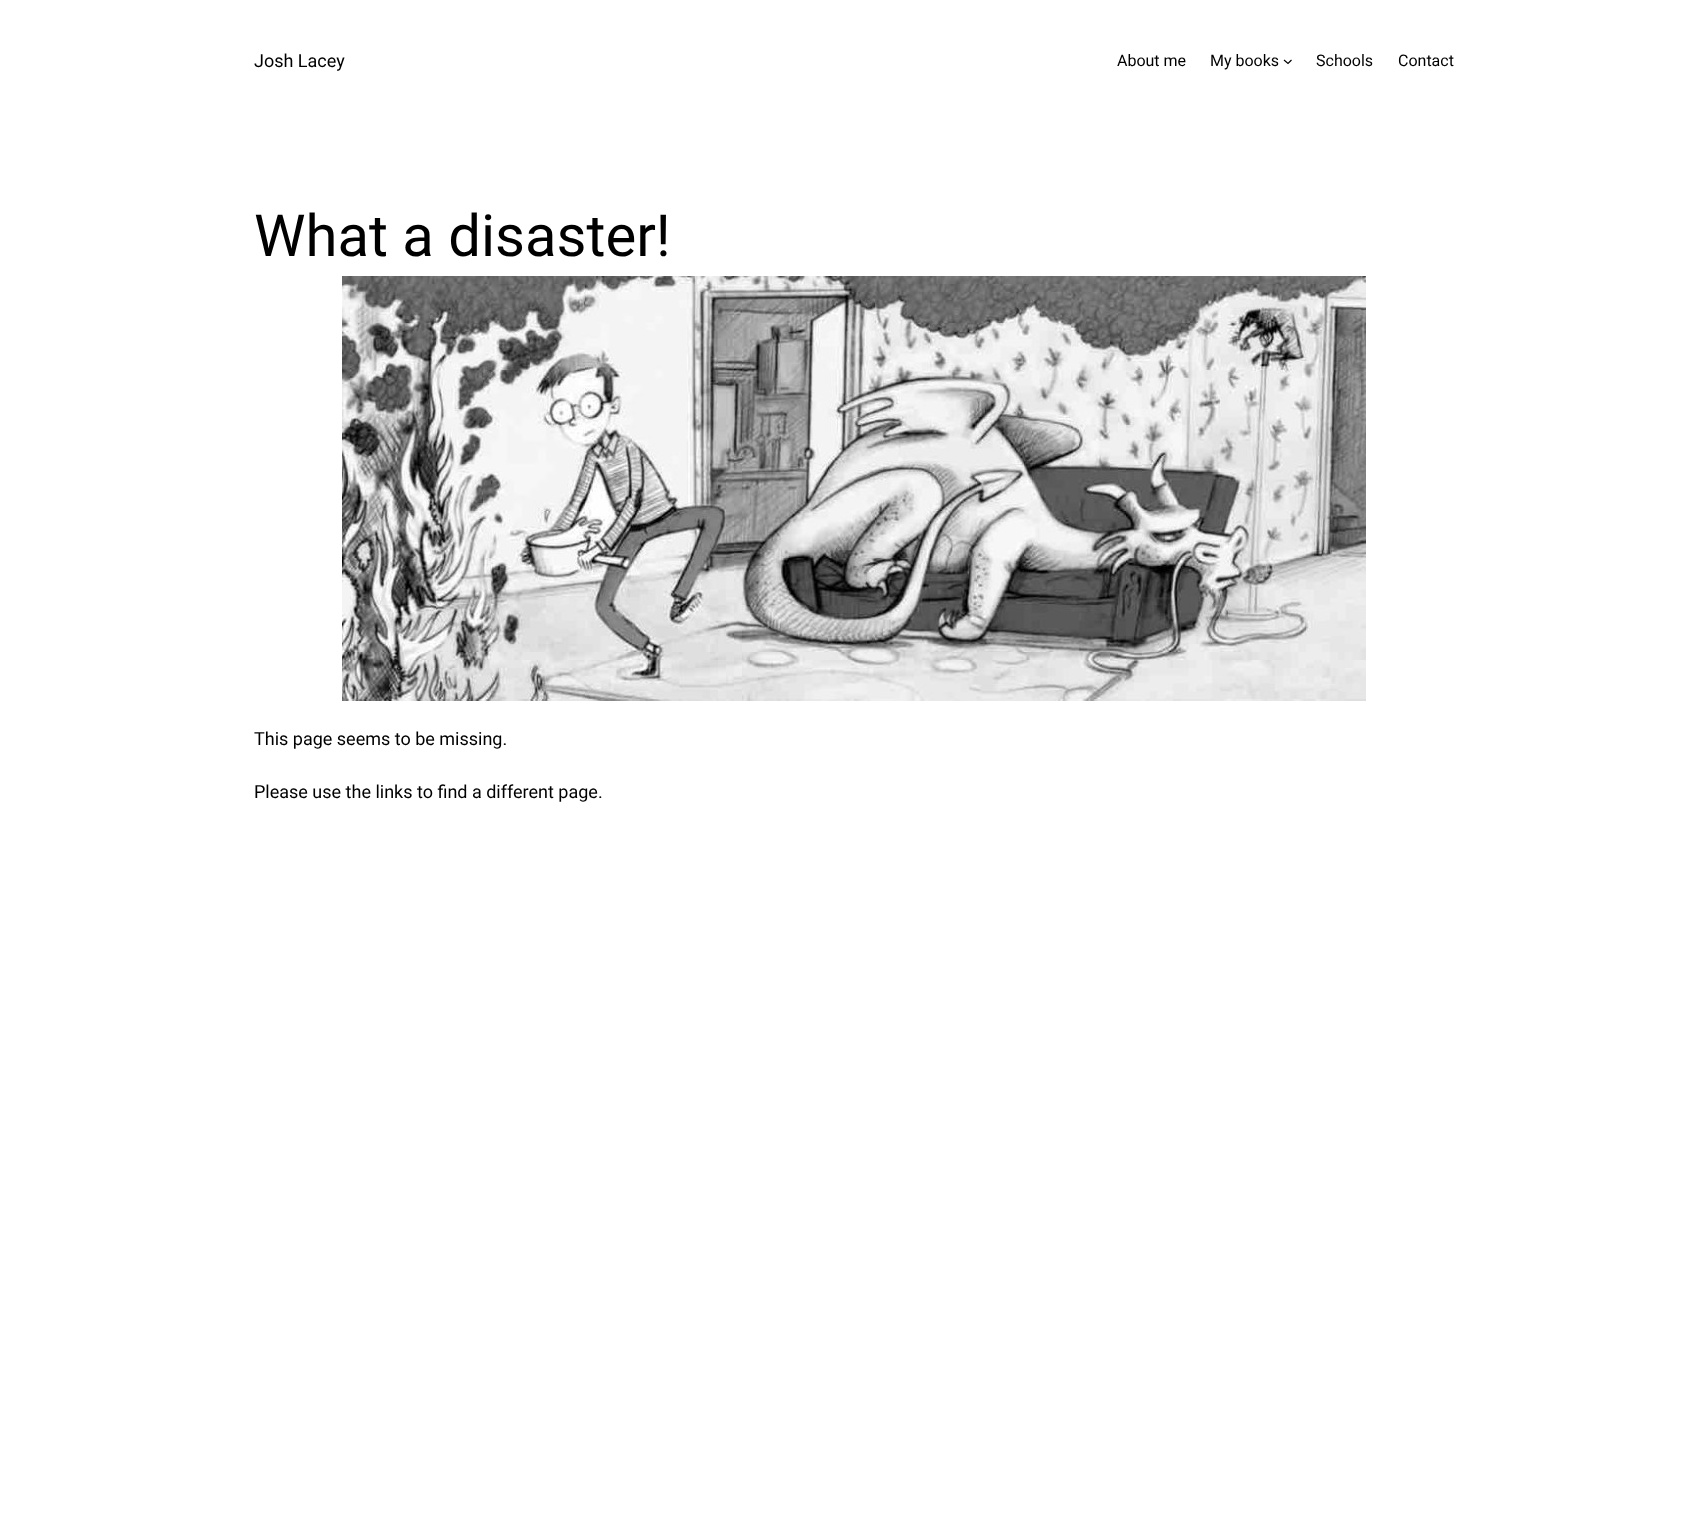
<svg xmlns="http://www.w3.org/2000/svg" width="1707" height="1514">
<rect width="100%" height="100%" fill="#fff"/>
<text x="254" y="67" style="font-family:Roboto;font-size:18px;fill:#000">Josh Lacey</text>
<text x="1117" y="66" style="font-family:Roboto;font-size:16px;fill:#000">About me</text>
<text x="1210" y="66" style="font-family:Roboto;font-size:16px;fill:#000">My books</text>
<path d="M1284 60l4 3.5l3.5-3.5" fill="none" stroke="#000" stroke-width="1.2"/>
<text x="1316" y="66" style="font-family:Roboto;font-size:16px;fill:#000">Schools</text>
<text x="1398" y="66" style="font-family:Roboto;font-size:16px;fill:#000">Contact</text>
<text x="254" y="256" style="font-family:Roboto;font-size:58px;fill:#000">What a disaster!</text>
<image x="342" y="276" width="1024" height="425" href="media/1.png"/>
<text x="254" y="745" style="font-family:Roboto;font-size:18px;fill:#000">This page seems to be missing.</text>
<text x="254" y="798" style="font-family:Roboto;font-size:18px;fill:#000">Please use the links to find a different page.</text>
</svg>
